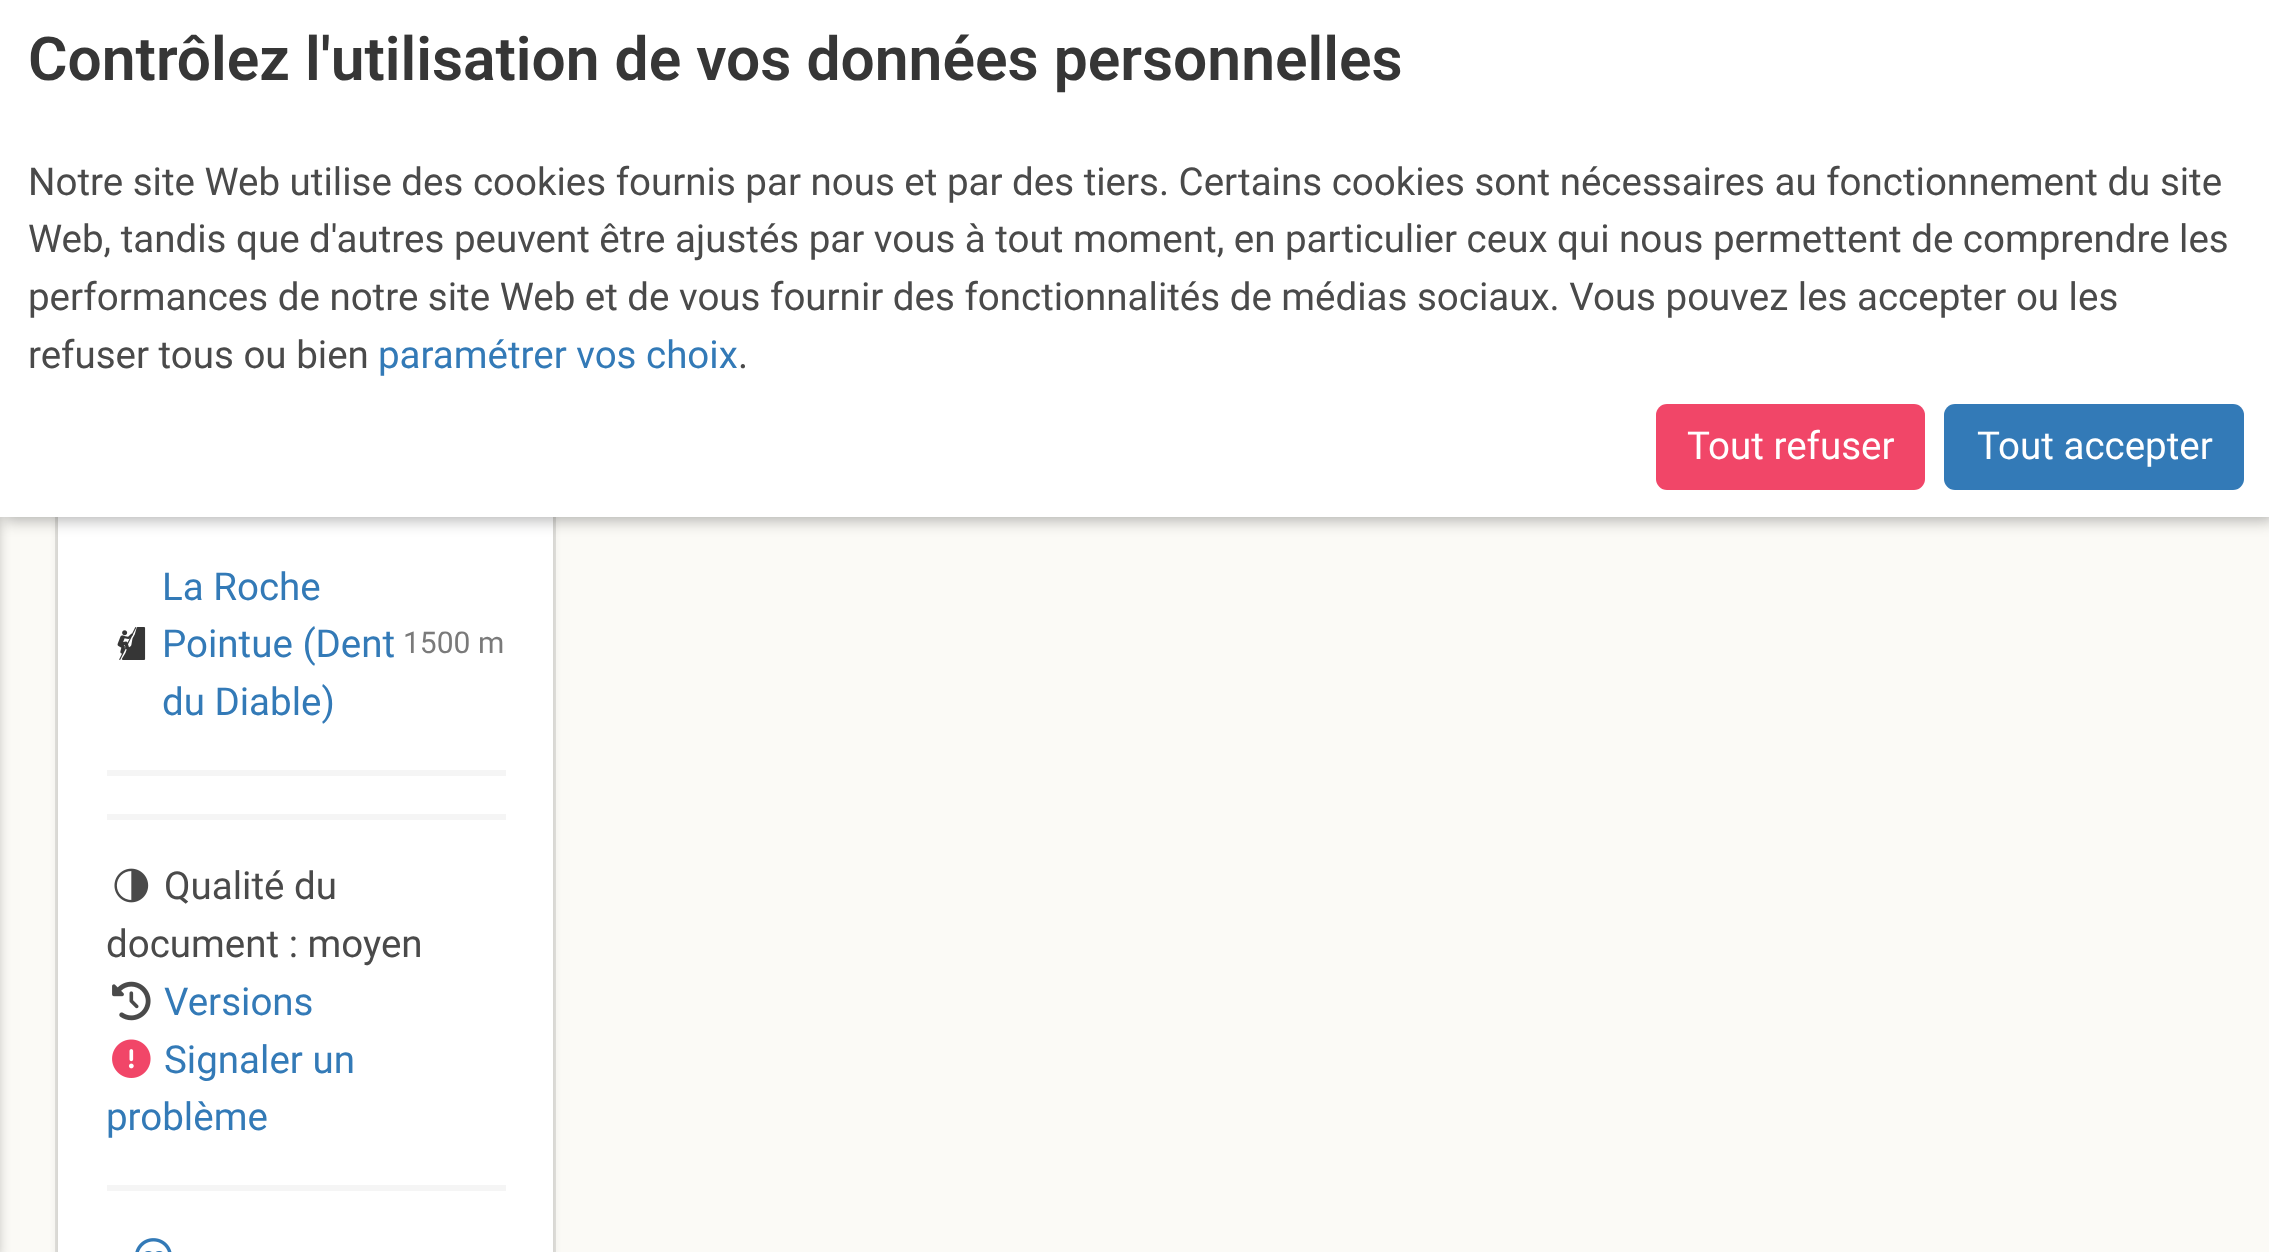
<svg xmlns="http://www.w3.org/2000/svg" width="2269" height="1252">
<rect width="100%" height="100%" fill="#fbfaf6"/>
<rect x="-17" y="3" width="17" height="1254" fill="#00000033" filter="blur(5.5px)"/>
<rect x="56.5" y="364.5" width="498" height="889" fill="none" stroke="#e3e2de" stroke-width="3"/>
<rect x="58" y="371" width="495" height="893" fill="#0a0a0a1a" filter="blur(4px)"/>
<rect x="58" y="517" width="495" height="735" fill="#fff"/>
<rect x="3" y="3" width="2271" height="517" fill="#0000004d" filter="blur(8px)"/>
<rect width="2269" height="517" fill="#fff"/>
<text x="28" y="80" style="font-family:Roboto;font-size:60.5px;font-weight:600;fill:#363636">Contrôlez l'utilisation de vos données personnelles</text>
<text x="28" y="195" style="font-family:Roboto;font-size:38.5px;fill:#4a4a4a">Notre site Web utilise des cookies fournis par nous et par des tiers. Certains cookies sont nécessaires au fonctionnement du site</text>
<text x="28" y="252" style="font-family:Roboto;font-size:38.5px;fill:#4a4a4a">Web, tandis que d'autres peuvent être ajustés par vous à tout moment, en particulier ceux qui nous permettent de comprendre les</text>
<text x="28" y="310" style="font-family:Roboto;font-size:38.5px;fill:#4a4a4a">performances de notre site Web et de vous fournir des fonctionnalités de médias sociaux. Vous pouvez les accepter ou les</text>
<text x="28" y="368" style="font-family:Roboto;font-size:38.5px;fill:#4a4a4a">refuser tous ou bien</text>
<text x="378" y="368" style="font-family:Roboto;font-size:38.5px;fill:#337ab7">paramétrer vos choix</text>
<text x="738" y="368" style="font-family:Roboto;font-size:38.5px;fill:#4a4a4a">.</text>
<rect x="1656" y="404" width="269" height="86" rx="11" fill="#f14668"/>
<text x="1687" y="459" style="font-family:Roboto;font-size:38.5px;fill:#fff">Tout refuser</text>
<rect x="1944" y="404" width="300" height="86" rx="11" fill="#337ab7"/>
<text x="1977" y="459" style="font-family:Roboto;font-size:38.5px;fill:#fff">Tout accepter</text>
<image x="117" y="627" width="29" height="33" href="media/1.png"/>
<text x="162" y="600" style="font-family:Roboto;font-size:38.5px;fill:#337ab7">La Roche</text>
<text x="162" y="657" style="font-family:Roboto;font-size:38.5px;fill:#337ab7">Pointue (Dent</text>
<text x="162" y="715" style="font-family:Roboto;font-size:38.5px;fill:#337ab7">du Diable)</text>
<text x="403" y="653" style="font-family:Roboto;font-size:30px;fill:#7a7a7a">1500 m</text>
<rect x="107" y="770" width="399" height="6" fill="#f5f5f5"/>
<rect x="107" y="814" width="399" height="6" fill="#f5f5f5"/>
<image x="114" y="868" width="35" height="35" href="media/2.png"/>
<text x="164" y="899" style="font-family:Roboto;font-size:38.5px;fill:#4a4a4a">Qualité du</text>
<text x="106" y="957" style="font-family:Roboto;font-size:38.5px;fill:#4a4a4a">document : moyen</text>
<image x="112" y="981" width="39" height="40" href="media/3.png"/>
<text x="164" y="1015" style="font-family:Roboto;font-size:38.5px;fill:#337ab7">Versions</text>
<image x="112" y="1039" width="39" height="39" href="media/4.png"/>
<text x="164" y="1073" style="font-family:Roboto;font-size:38.5px;fill:#337ab7">Signaler un</text>
<text x="106" y="1130" style="font-family:Roboto;font-size:38.5px;fill:#337ab7">problème</text>
<rect x="107" y="1185" width="399" height="6" fill="#f5f5f5"/>
<image x="135" y="1238" width="37" height="14" href="media/5.png"/>
</svg>
